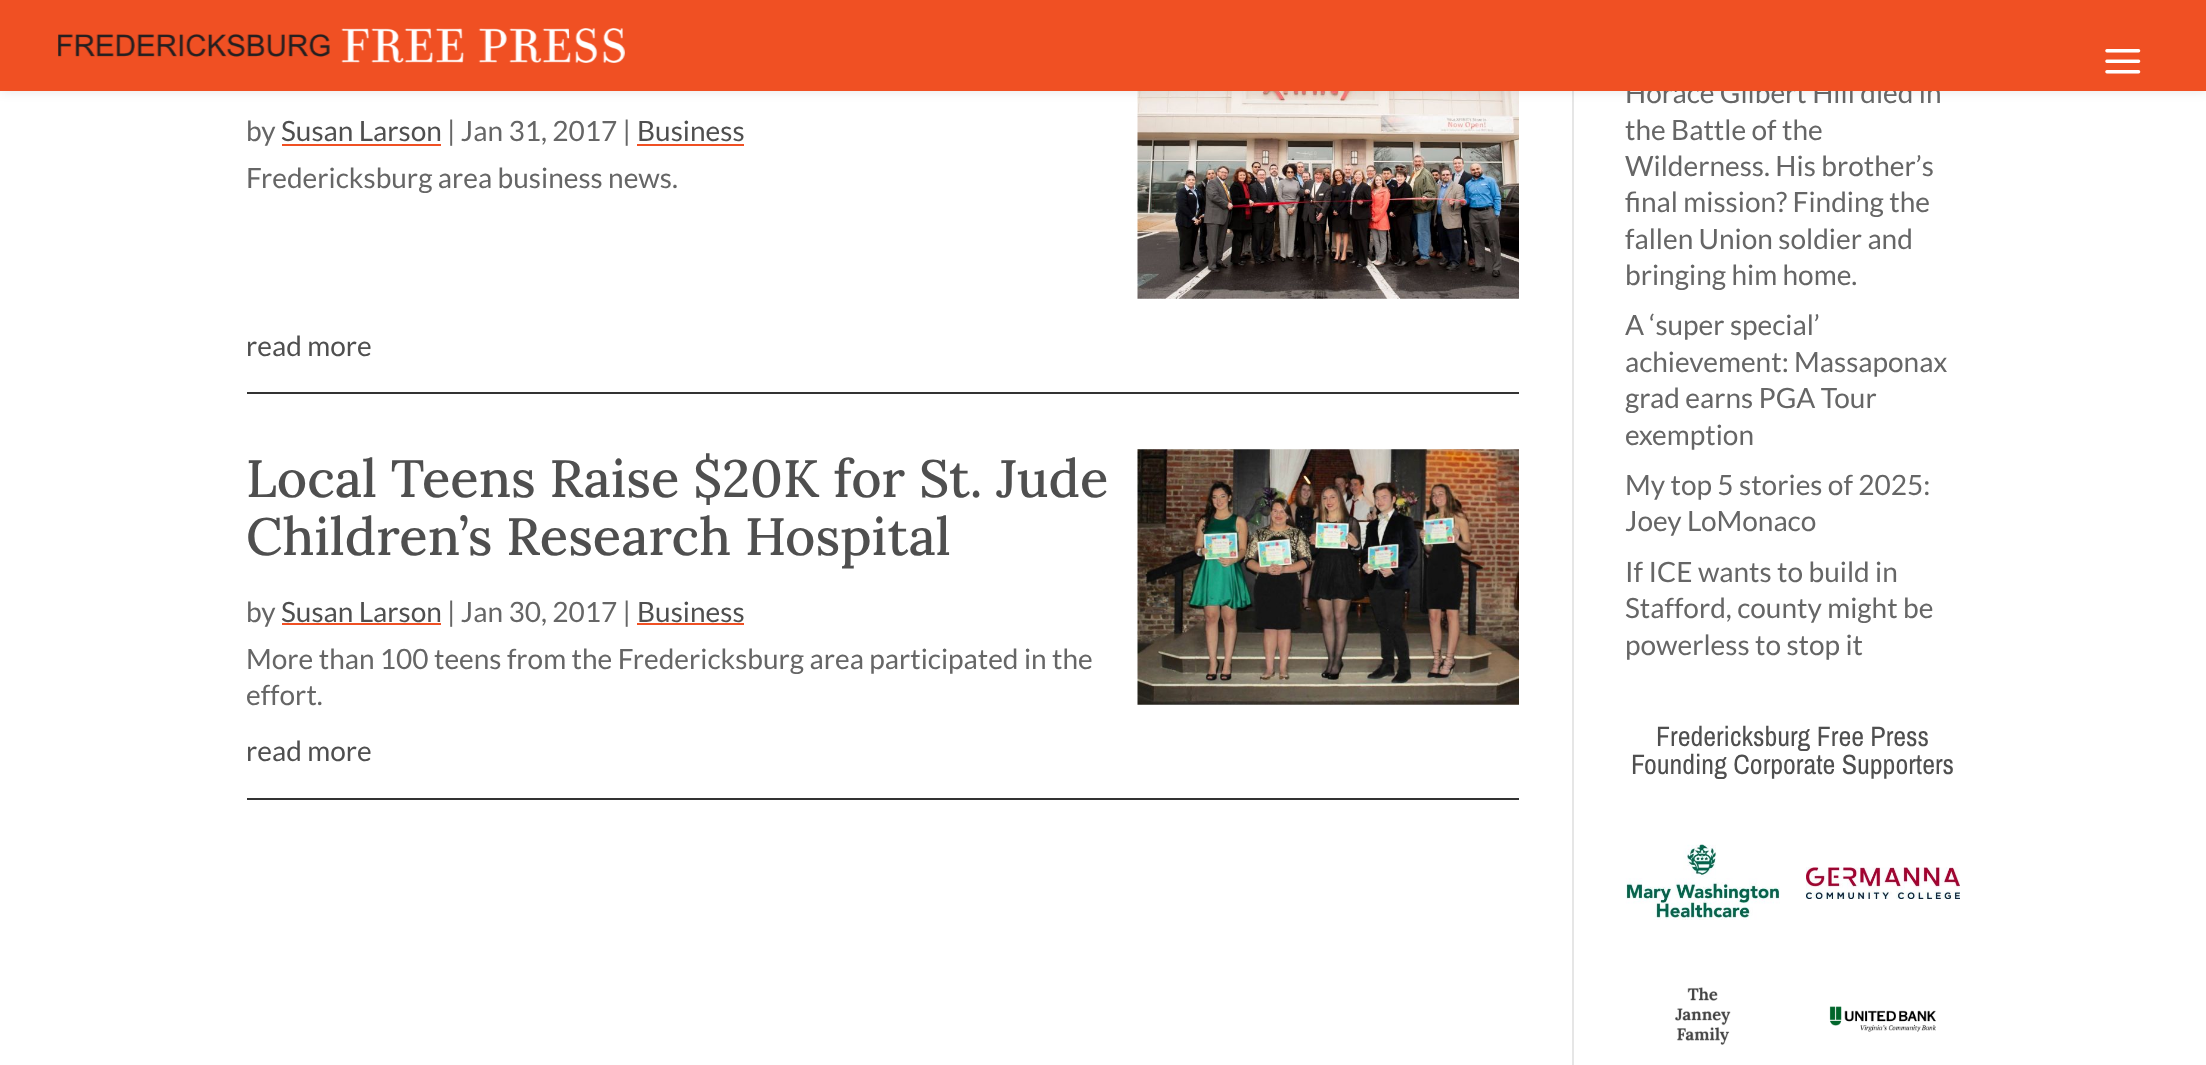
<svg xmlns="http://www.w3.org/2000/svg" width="2206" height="1065">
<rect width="100%" height="100%" fill="#fff"/>
<image x="1137" y="91" width="382" height="208" href="media/3.png"/>
<rect x="1572" y="91" width="2" height="974" fill="#e6e6e6"/>
<rect width="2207" height="91" fill="#0000001a" filter="blur(6px)"/>
<text x="1625" y="103" style="font-family:Lato;font-size:28px;fill:#666">Horace Gilbert Hill died in</text>
<rect width="2206" height="91" fill="#f05023"/>
<image x="58" y="28" width="567" height="35" href="media/1.png"/>
<image x="2105" y="49" width="36" height="25" href="media/2.png"/>
<rect x="247" y="392" width="1272" height="2" fill="#333"/>
<text x="246" y="141" style="font-family:Lato;font-size:28px;fill:#666">by</text>
<text x="281" y="141" style="font-family:Lato;font-size:28px;fill:#4f4f4f">Susan Larson</text>
<rect x="282" y="144" width="159" height="2" fill="#f05023"/>
<text x="447" y="141" style="font-family:Lato;font-size:28px;fill:#666">| Jan 31, 2017 |</text>
<text x="637" y="141" style="font-family:Lato;font-size:28px;fill:#4f4f4f">Business</text>
<rect x="637" y="144" width="107" height="2" fill="#f05023"/>
<text x="246" y="188" style="font-family:Lato;font-size:28px;fill:#666">Fredericksburg area business news.</text>
<text x="246" y="356" style="font-family:Lato;font-size:28px;fill:#4f4f4f">read more</text>
<rect x="247" y="798" width="1272" height="2" fill="#333"/>
<text x="246" y="497" style="font-family:Lora;font-size:52.5px;font-weight:500;fill:#4f4f4f">Local Teens Raise $20K for St. Jude</text>
<text x="246" y="555" style="font-family:Lora;font-size:52.5px;font-weight:500;fill:#4f4f4f">Children’s Research Hospital</text>
<image x="1137" y="449" width="382" height="256" href="media/4.png"/>
<text x="246" y="622" style="font-family:Lato;font-size:28px;fill:#666">by</text>
<text x="281" y="622" style="font-family:Lato;font-size:28px;fill:#4f4f4f">Susan Larson</text>
<rect x="282" y="623" width="159" height="2" fill="#f05023"/>
<text x="447" y="622" style="font-family:Lato;font-size:28px;fill:#666">| Jan 30, 2017 |</text>
<text x="637" y="622" style="font-family:Lato;font-size:28px;fill:#4f4f4f">Business</text>
<rect x="637" y="623" width="107" height="2" fill="#f05023"/>
<text x="246" y="669" style="font-family:Lato;font-size:28px;fill:#666">More than 100 teens from the Fredericksburg area participated in the</text>
<text x="246" y="705" style="font-family:Lato;font-size:28px;fill:#666">effort.</text>
<text x="246" y="761" style="font-family:Lato;font-size:28px;fill:#4f4f4f">read more</text>
<text x="1625" y="140" style="font-family:Lato;font-size:28px;fill:#666">the Battle of the</text>
<text x="1625" y="176" style="font-family:Lato;font-size:28px;fill:#666">Wilderness. His brother’s</text>
<text x="1625" y="212" style="font-family:Lato;font-size:28px;fill:#666">final mission? Finding the</text>
<text x="1625" y="249" style="font-family:Lato;font-size:28px;fill:#666">fallen Union soldier and</text>
<text x="1625" y="285" style="font-family:Lato;font-size:28px;fill:#666">bringing him home.</text>
<text x="1625" y="335" style="font-family:Lato;font-size:28px;fill:#666">A ‘super special’</text>
<text x="1625" y="372" style="font-family:Lato;font-size:28px;fill:#666">achievement: Massaponax</text>
<text x="1625" y="408" style="font-family:Lato;font-size:28px;fill:#666">grad earns PGA Tour</text>
<text x="1625" y="445" style="font-family:Lato;font-size:28px;fill:#666">exemption</text>
<text x="1625" y="495" style="font-family:Lato;font-size:28px;fill:#666">My top 5 stories of 2025:</text>
<text x="1625" y="531" style="font-family:Lato;font-size:28px;fill:#666">Joey LoMonaco</text>
<text x="1625" y="582" style="font-family:Lato;font-size:28px;fill:#666">If ICE wants to build in</text>
<text x="1625" y="618" style="font-family:Lato;font-size:28px;fill:#666">Stafford, county might be</text>
<text x="1625" y="655" style="font-family:Lato;font-size:28px;fill:#666">powerless to stop it</text>
<text x="1656" y="746" style="font-family:Archivo Narrow;font-size:28px;fill:#4f4f4f">Fredericksburg Free Press</text>
<text x="1631" y="774" style="font-family:Archivo Narrow;font-size:28px;fill:#4f4f4f">Founding Corporate Supporters</text>
<image x="1625" y="844" width="155" height="76" href="media/5.png"/>
<image x="1806" y="867" width="154" height="32" href="media/6.png"/>
<image x="1675" y="987" width="56" height="58" href="media/7.png"/>
<image x="1829" y="1006" width="107" height="26" href="media/8.png"/>
</svg>
